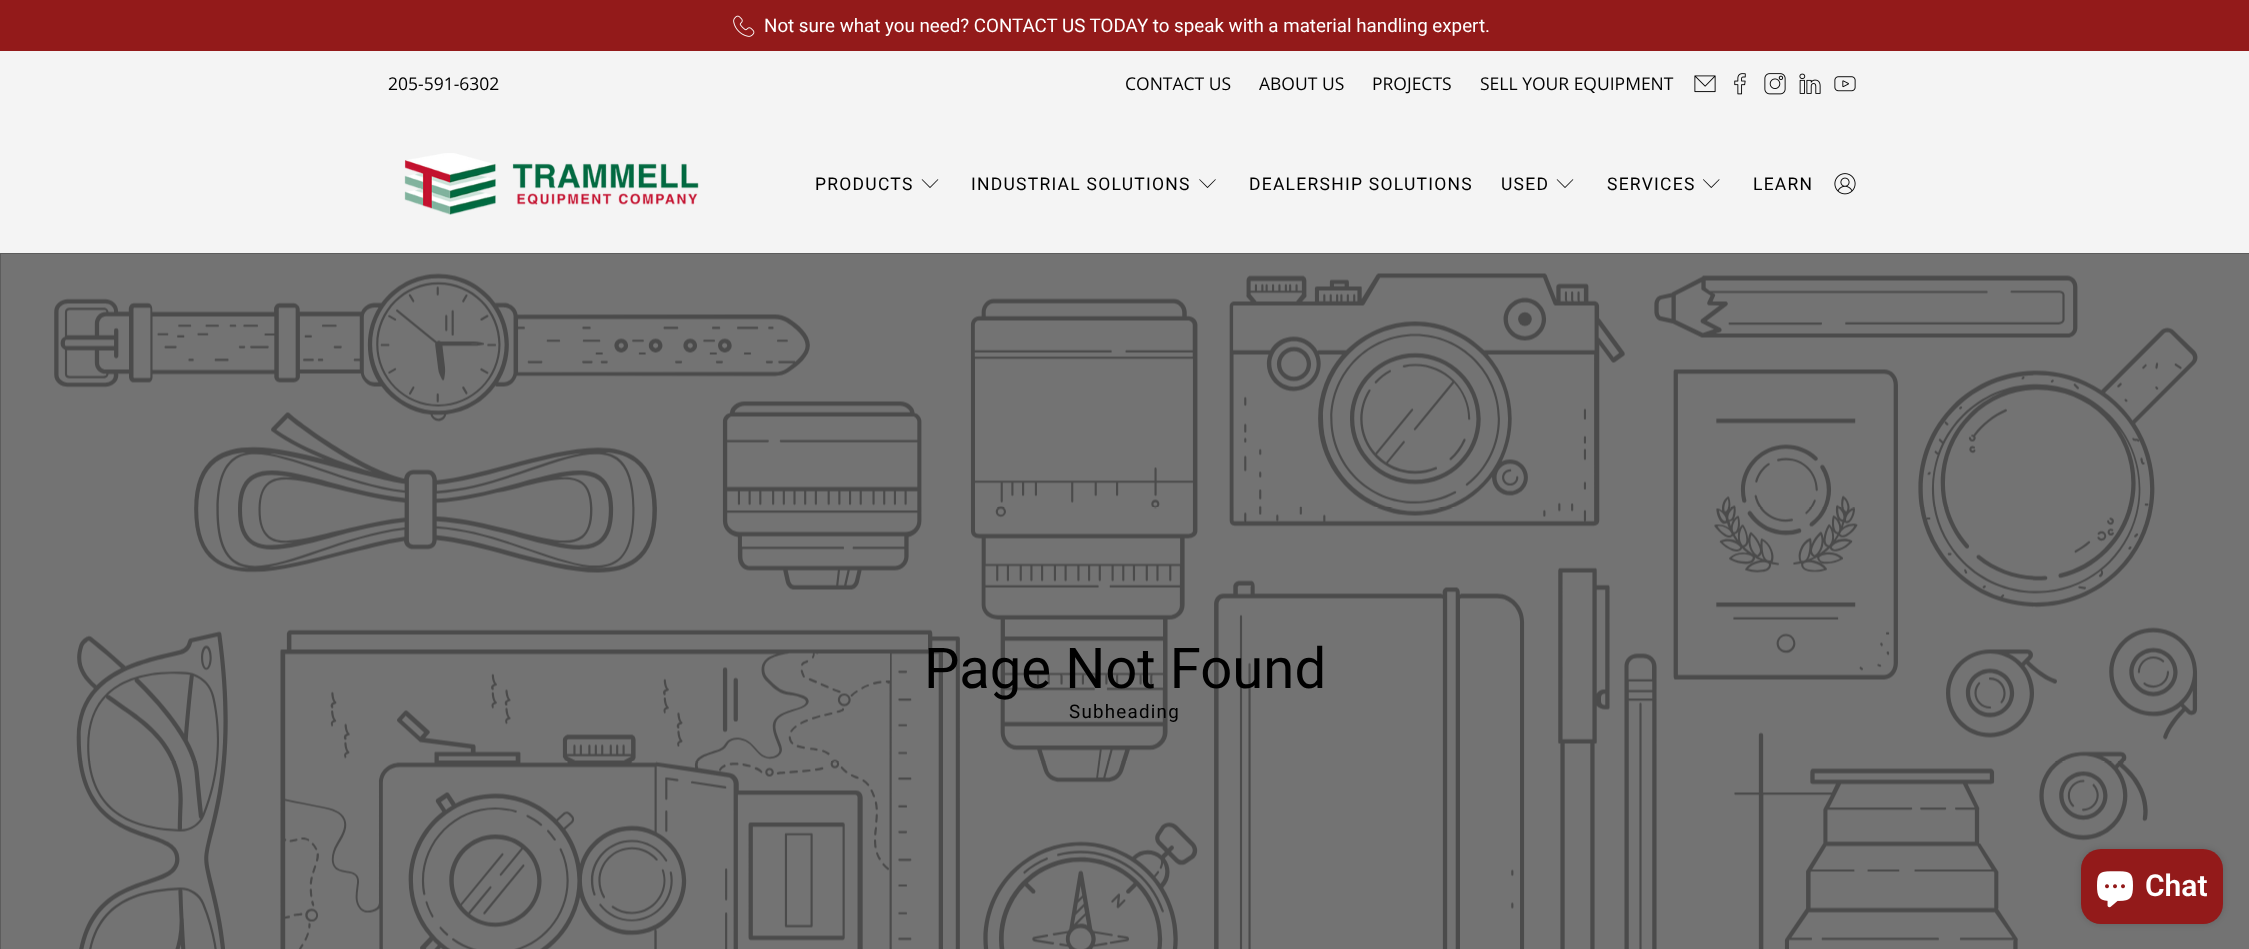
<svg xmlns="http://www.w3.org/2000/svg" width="2249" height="949">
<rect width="100%" height="100%" fill="#f4f4f4"/>
<rect width="2249" height="51" fill="#931a1a"/>
<image x="733" y="15" width="22" height="22" href="media/1.png"/>
<text x="764" y="32" style="font-family:Roboto;font-size:18.75px;fill:#fff">Not sure what you need? CONTACT US TODAY to speak with a material handling expert.</text>
<text x="388" y="90" style="font-family:Open Sans;font-size:17.5px;fill:#000">205-591-6302</text>
<text x="1125" y="90" style="font-family:Open Sans;font-size:17.5px;fill:#000">CONTACT US</text>
<text x="1259" y="90" style="font-family:Open Sans;font-size:17.5px;fill:#000">ABOUT US</text>
<text x="1372" y="90" style="font-family:Open Sans;font-size:17.5px;fill:#000">PROJECTS</text>
<text x="1480" y="90" style="font-family:Open Sans;font-size:17.5px;fill:#000">SELL YOUR EQUIPMENT</text>
<image x="1694" y="75" width="22" height="18" href="media/2.png"/>
<image x="1734" y="73" width="12" height="22" href="media/3.png"/>
<image x="1764" y="73" width="22" height="22" href="media/4.png"/>
<image x="1799" y="73" width="22" height="21" href="media/5.png"/>
<image x="1834" y="76" width="22" height="16" href="media/6.png"/>
<image x="404" y="153" width="295" height="62" href="media/7.png"/>
<text x="815" y="190" style="font-family:Roboto;font-size:17.5px;letter-spacing:1.25px;fill:#000">PRODUCTS</text>
<image x="921" y="179" width="18" height="9" href="media/8.png"/>
<text x="971" y="190" style="font-family:Roboto;font-size:17.5px;letter-spacing:1.25px;fill:#000">INDUSTRIAL SOLUTIONS</text>
<image x="1199" y="179" width="17" height="9" href="media/9.png"/>
<text x="1249" y="190" style="font-family:Roboto;font-size:17.5px;letter-spacing:1.25px;fill:#000">DEALERSHIP SOLUTIONS</text>
<text x="1501" y="190" style="font-family:Roboto;font-size:17.5px;letter-spacing:1.25px;fill:#000">USED</text>
<image x="1556" y="179" width="18" height="9" href="media/8.png"/>
<text x="1607" y="190" style="font-family:Roboto;font-size:17.5px;letter-spacing:1.25px;fill:#000">SERVICES</text>
<image x="1703" y="179" width="17" height="9" href="media/10.png"/>
<text x="1753" y="190" style="font-family:Roboto;font-size:17.5px;letter-spacing:1.25px;fill:#000">LEARN</text>
<image x="1834" y="173" width="22" height="22" href="media/11.png"/>
<rect x="0.5" y="253.5" width="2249" height="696" fill="#737373" stroke="#5c5c5c"/>
<image x="54" y="273" width="2144" height="676" href="media/12.png"/>
<text x="924" y="688" style="font-family:Roboto;font-size:56.25px;fill:#000">Page Not Found</text>
<text x="1069" y="718" style="font-family:Roboto;font-size:18.75px;letter-spacing:1.25px;fill:#000">Subheading</text>
<rect x="2081" y="849" width="142" height="75" rx="20" fill="#00000026" filter="blur(3px)"/>
<rect x="2081" y="849" width="142" height="75" rx="20" fill="#931a1a"/>
<image x="2097" y="871" width="36" height="37" href="media/13.png"/>
<text x="2145" y="896" style="font-family:Roboto;font-size:30px;font-weight:600;fill:#fff">Chat</text>
</svg>
